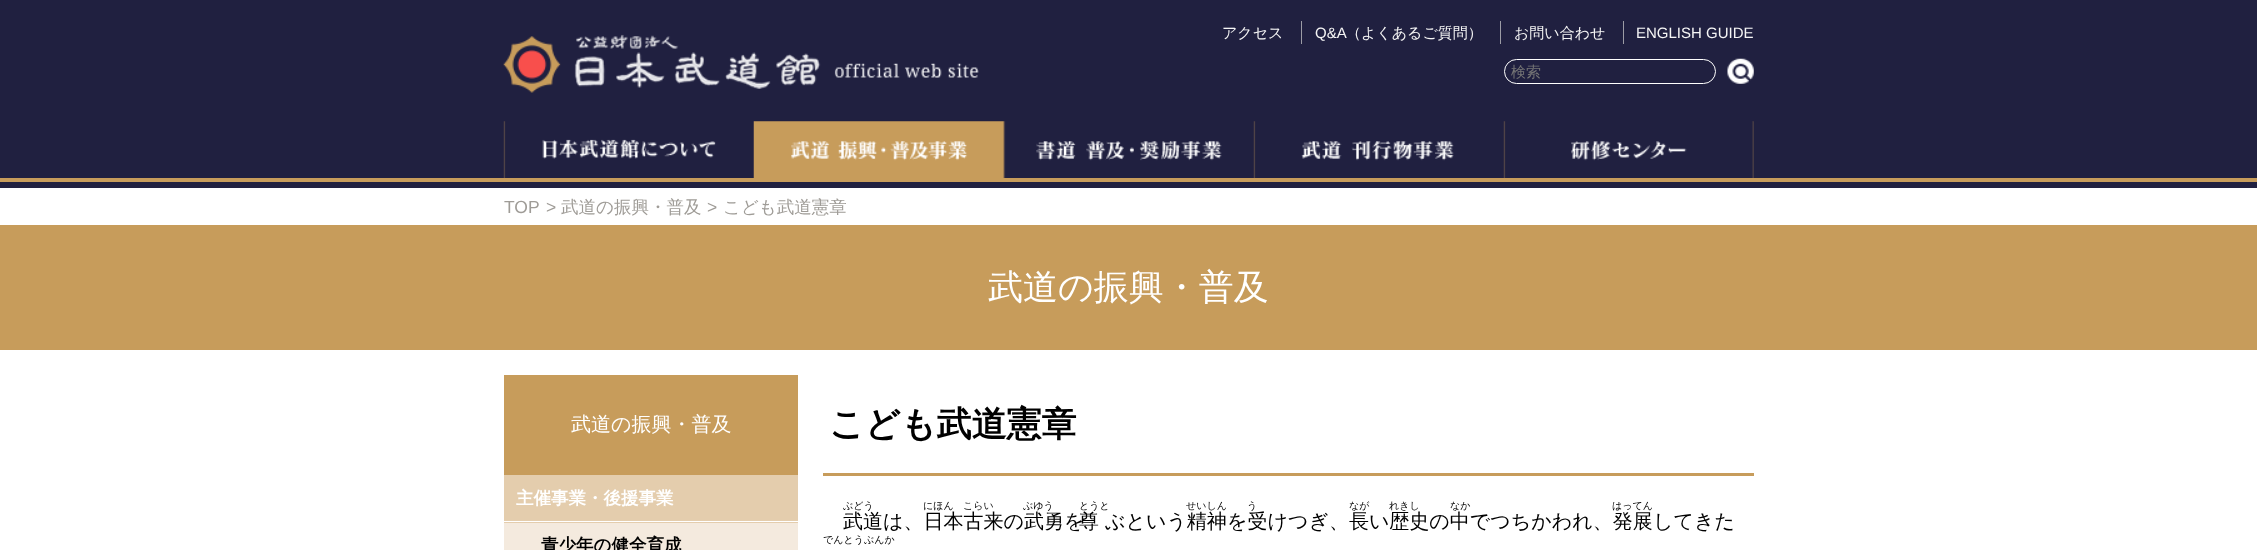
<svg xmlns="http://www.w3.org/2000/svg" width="2257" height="550">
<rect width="100%" height="100%" fill="#fff"/>
<rect width="2257" height="178" fill="#202040"/>
<image x="503" y="34" width="476" height="59" href="media/1.png"/>
<text x="1222" y="38" style="font-family:WenQuanYi Zen Hei;font-size:15px;font-weight:500;fill:#f5f5f5">アクセス</text>
<rect x="1301" y="21" width="1" height="23" fill="#9c9ca5"/>
<text x="1315" y="38" style="font-family:Liberation Sans;font-size:15px;fill:#f5f5f5">Q&amp;A</text>
<text x="1346" y="38" style="font-family:WenQuanYi Zen Hei;font-size:15px;font-weight:500;fill:#f5f5f5">（よくあるご質問）</text>
<rect x="1500" y="21" width="1" height="23" fill="#9c9ca5"/>
<text x="1514" y="38" style="font-family:WenQuanYi Zen Hei;font-size:15px;font-weight:500;fill:#f5f5f5">お問い合わせ</text>
<rect x="1623" y="21" width="1" height="23" fill="#9c9ca5"/>
<text x="1636" y="38" style="font-family:Liberation Sans;font-size:15px;fill:#f5f5f5">ENGLISH GUIDE</text>
<rect x="1504.5" y="59.5" width="211" height="24" rx="12" fill="none" stroke="#fff"/>
<text x="1511" y="77" style="font-family:WenQuanYi Zen Hei;font-size:15px;font-weight:500;fill:#757575">検索</text>
<image x="1727" y="58" width="27" height="26" href="media/2.png"/>
<image x="503" y="121" width="213" height="57" href="media/3.png"/>
<image x="753" y="121" width="251" height="57" href="media/4.png"/>
<image x="1003" y="121" width="219" height="57" href="media/5.png"/>
<image x="1253" y="121" width="201" height="57" href="media/6.png"/>
<image x="1503" y="121" width="251" height="57" href="media/7.png"/>
<rect y="182" width="2257" height="6" fill="#202040"/>
<rect y="178" width="2257" height="4" fill="#c79c5b"/>
<text x="504" y="213" style="font-family:Liberation Sans;font-size:17.5px;fill:#9f9c97">TOP</text>
<text x="546" y="213" style="font-family:Liberation Sans;font-size:17.5px;fill:#9f9c97">&gt;</text>
<text x="561" y="213" style="font-family:WenQuanYi Zen Hei;font-size:17.5px;font-weight:500;fill:#9f9c97">武道の振興・普及</text>
<text x="707" y="213" style="font-family:Liberation Sans;font-size:17.5px;fill:#9f9c97">&gt;</text>
<text x="723" y="213" style="font-family:WenQuanYi Zen Hei;font-size:17.5px;font-weight:500;fill:#9f9c97">こども武道憲章</text>
<rect y="225" width="2257" height="125" fill="#c79c5b"/>
<text x="988" y="299" style="font-family:WenQuanYi Zen Hei;font-size:35px;font-weight:500;fill:#fff">武道の振興・普及</text>
<rect x="504" y="375" width="294" height="100" fill="#c79c5b"/>
<text x="571" y="431" style="font-family:WenQuanYi Zen Hei;font-size:20px;font-weight:500;fill:#fff">武道の振興・普及</text>
<rect x="504" y="475" width="294" height="48" fill="#e4cdad"/>
<rect x="504" y="521" width="294" height="1" fill="#fff"/>
<text x="516" y="504" style="font-family:WenQuanYi Zen Hei;font-size:17.5px;font-weight:bold;fill:#fff">主催事業・後援事業</text>
<rect x="504" y="523" width="294" height="27" fill="#f4eade"/>
<text x="541" y="551" style="font-family:WenQuanYi Zen Hei;font-size:17.5px;font-weight:bold;fill:#000">青少年の健全育成</text>
<rect x="823" y="473" width="931" height="3" fill="#c79c5b"/>
<text x="829" y="436" style="font-family:WenQuanYi Zen Hei;font-size:35px;font-weight:bold;fill:#000">こども武道憲章</text>
<text x="843" y="509" style="font-family:WenQuanYi Zen Hei;font-size:10px;font-weight:500;fill:#000">ぶどう</text>
<text x="843" y="528" style="font-family:WenQuanYi Zen Hei;font-size:20px;font-weight:500;fill:#000">武道は、日本古来の武勇を</text>
<text x="923" y="509" style="font-family:WenQuanYi Zen Hei;font-size:10px;font-weight:500;fill:#000">にほん</text>
<text x="963" y="509" style="font-family:WenQuanYi Zen Hei;font-size:10px;font-weight:500;fill:#000">こらい</text>
<text x="1023" y="509" style="font-family:WenQuanYi Zen Hei;font-size:10px;font-weight:500;fill:#000">ぶゆう</text>
<text x="1079" y="509" style="font-family:WenQuanYi Zen Hei;font-size:10px;font-weight:500;fill:#000">とうと</text>
<text x="1079" y="528" style="font-family:WenQuanYi Zen Hei;font-size:20px;font-weight:500;fill:#000">尊 ぶという精神</text>
<text x="1186" y="509" style="font-family:WenQuanYi Zen Hei;font-size:10px;font-weight:500;fill:#000">せいしん</text>
<text x="1247" y="509" style="font-family:WenQuanYi Zen Hei;font-size:10px;font-weight:500;fill:#000">う</text>
<text x="1349" y="509" style="font-family:WenQuanYi Zen Hei;font-size:10px;font-weight:500;fill:#000">なが</text>
<text x="1389" y="509" style="font-family:WenQuanYi Zen Hei;font-size:10px;font-weight:500;fill:#000">れきし</text>
<text x="1450" y="509" style="font-family:WenQuanYi Zen Hei;font-size:10px;font-weight:500;fill:#000">なか</text>
<text x="1612" y="509" style="font-family:WenQuanYi Zen Hei;font-size:10px;font-weight:500;fill:#000">はってん</text>
<text x="1227" y="528" style="font-family:WenQuanYi Zen Hei;font-size:20px;font-weight:500;fill:#000">を受けつぎ、長い歴史の中でつちかわれ、発展</text>
<text x="1653" y="528" style="font-family:WenQuanYi Zen Hei;font-size:20px;font-weight:500;fill:#000">してきた</text>
<text x="823" y="543" style="font-family:WenQuanYi Zen Hei;font-size:10px;font-weight:500;fill:#000">でんとうぶんか</text>
</svg>
